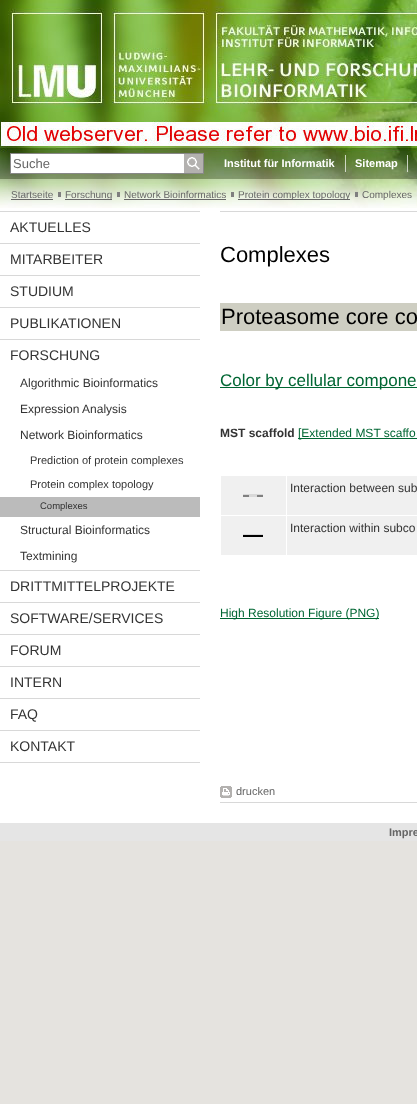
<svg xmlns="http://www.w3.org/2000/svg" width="417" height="1104">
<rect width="100%" height="100%" fill="#e5e3df"/>
<rect y="208" width="417" height="615" fill="#fff"/>
<image x="0" y="0" width="417" height="148" href="media/1.png"/>
<image x="0" y="148" width="417" height="31" href="media/2.png"/>
<rect x="11" y="154" width="173" height="19" fill="#fff"/>
<rect x="10.5" y="153.5" width="193" height="20" fill="none" stroke="#888"/>
<text x="13" y="168" style="font-family:Liberation Sans;font-size:13px;fill:#666">Suche</text>
<image x="184" y="154" width="19" height="19" href="media/3.png"/>
<text x="224" y="167" style="font-family:Liberation Sans;font-size:11px;font-weight:bold;fill:#fff">Institut für Informatik</text>
<rect x="345" y="155" width="1" height="17" fill="#ffffffb3"/>
<text x="355" y="167" style="font-family:Liberation Sans;font-size:11px;font-weight:bold;fill:#fff">Sitemap</text>
<rect x="407" y="155" width="1" height="17" fill="#ffffffb3"/>
<image x="0" y="179" width="417" height="29" href="media/4.png"/>
<text x="11" y="198" style="font-family:Liberation Sans;font-size:10px;fill:#666">Startseite</text>
<rect x="11" y="199" width="42" height="1" fill="#666"/>
<rect x="58" y="192" width="3" height="5" fill="#7f7f7f"/>
<rect x="65" y="199" width="47" height="1" fill="#666"/>
<text x="65" y="198" style="font-family:Liberation Sans;font-size:10px;fill:#666">Forschung</text>
<rect x="117" y="192" width="3" height="5" fill="#7f7f7f"/>
<text x="124" y="198" style="font-family:Liberation Sans;font-size:10px;fill:#666">Network Bioinformatics</text>
<rect x="124" y="199" width="102" height="1" fill="#666"/>
<rect x="231" y="192" width="3" height="5" fill="#7f7f7f"/>
<rect x="238" y="199" width="112" height="1" fill="#666"/>
<text x="238" y="198" style="font-family:Liberation Sans;font-size:10px;fill:#666">Protein complex topology</text>
<rect x="355" y="192" width="3" height="5" fill="#7f7f7f"/>
<text x="362" y="198" style="font-family:Liberation Sans;font-size:10px;fill:#666">Complexes</text>
<rect y="211" width="200" height="1" fill="#d8d8d8"/>
<rect y="243" width="200" height="1" fill="#d8d8d8"/>
<text x="10" y="232" style="font-family:Liberation Sans;font-size:14px;fill:#333">AKTUELLES</text>
<rect y="275" width="200" height="1" fill="#d8d8d8"/>
<text x="10" y="264" style="font-family:Liberation Sans;font-size:14px;fill:#333">MITARBEITER</text>
<rect y="307" width="200" height="1" fill="#d8d8d8"/>
<text x="10" y="296" style="font-family:Liberation Sans;font-size:14px;fill:#333">STUDIUM</text>
<rect y="339" width="200" height="1" fill="#d8d8d8"/>
<text x="10" y="328" style="font-family:Liberation Sans;font-size:14px;fill:#333">PUBLIKATIONEN</text>
<rect y="570" width="200" height="1" fill="#d8d8d8"/>
<text x="10" y="360" style="font-family:Liberation Sans;font-size:14px;fill:#333">FORSCHUNG</text>
<text x="20" y="387" style="font-family:Liberation Sans;font-size:12px;fill:#333">Algorithmic Bioinformatics</text>
<text x="20" y="413" style="font-family:Liberation Sans;font-size:12px;fill:#333">Expression Analysis</text>
<text x="20" y="439" style="font-family:Liberation Sans;font-size:12px;fill:#333">Network Bioinformatics</text>
<text x="30" y="464" style="font-family:Liberation Sans;font-size:11px;fill:#333">Prediction of protein complexes</text>
<text x="30" y="488" style="font-family:Liberation Sans;font-size:11px;fill:#333">Protein complex topology</text>
<rect y="497" width="200" height="20" fill="#bbb"/>
<text x="40" y="509" style="font-family:Liberation Sans;font-size:9.5px;fill:#333">Complexes</text>
<text x="20" y="534" style="font-family:Liberation Sans;font-size:12px;fill:#333">Structural Bioinformatics</text>
<text x="20" y="560" style="font-family:Liberation Sans;font-size:12px;fill:#333">Textmining</text>
<rect y="602" width="200" height="1" fill="#d8d8d8"/>
<text x="10" y="591" style="font-family:Liberation Sans;font-size:14px;fill:#333">DRITTMITTELPROJEKTE</text>
<rect y="634" width="200" height="1" fill="#d8d8d8"/>
<text x="10" y="623" style="font-family:Liberation Sans;font-size:14px;fill:#333">SOFTWARE/SERVICES</text>
<rect y="666" width="200" height="1" fill="#d8d8d8"/>
<text x="10" y="655" style="font-family:Liberation Sans;font-size:14px;fill:#333">FORUM</text>
<rect y="698" width="200" height="1" fill="#d8d8d8"/>
<text x="10" y="687" style="font-family:Liberation Sans;font-size:14px;fill:#333">INTERN</text>
<rect y="730" width="200" height="1" fill="#d8d8d8"/>
<text x="10" y="719" style="font-family:Liberation Sans;font-size:14px;fill:#333">FAQ</text>
<rect y="762" width="200" height="1" fill="#d8d8d8"/>
<text x="10" y="751" style="font-family:Liberation Sans;font-size:14px;fill:#333">KONTAKT</text>
<rect x="220" y="211" width="197" height="1" fill="#d8d8d8"/>
<text x="220" y="262" style="font-family:Liberation Sans;font-size:22px;fill:#000">Complexes</text>
<rect x="220" y="303" width="197" height="28" fill="#cecec2"/>
<text x="221" y="324" style="font-family:Liberation Sans;font-size:22px;fill:#000">Proteasome core co</text>
<rect x="220" y="387" width="197" height="1" fill="#063"/>
<text x="220" y="386" style="font-family:Liberation Sans;font-size:17px;fill:#063">Color by cellular compone</text>
<text x="220" y="437" style="font-family:Liberation Sans;font-size:12px;font-weight:bold;fill:#333">MST scaffold</text>
<rect x="298" y="438" width="119" height="1" fill="#063"/>
<text x="298" y="437" style="font-family:Liberation Sans;font-size:12px;fill:#063">[Extended MST scaffo</text>
<rect x="221" y="476" width="65" height="39" fill="#f0f0f0"/>
<rect x="243" y="494" width="20" height="3" fill="#d8d8d8"/>
<path d="M243 496h6m8 0h6" fill="none" stroke="#808080" stroke-width="2"/>
<rect x="287" y="476" width="130" height="39" fill="#f0f0f0"/>
<text x="290" y="492" style="font-family:Liberation Sans;font-size:12px;fill:#333">Interaction between sub</text>
<rect x="221" y="516" width="65" height="39" fill="#f0f0f0"/>
<rect x="243" y="534" width="20" height="1" fill="#d8d8d8"/>
<rect x="243" y="535" width="20" height="2" fill="#000"/>
<rect x="287" y="516" width="130" height="39" fill="#f0f0f0"/>
<text x="290" y="532" style="font-family:Liberation Sans;font-size:12px;fill:#333">Interaction within subco</text>
<rect x="220" y="618" width="159" height="1" fill="#063"/>
<text x="220" y="617" style="font-family:Liberation Sans;font-size:12px;fill:#063">High Resolution Figure (PNG)</text>
<rect x="220" y="802" width="197" height="1" fill="#d8d8d8"/>
<image x="220" y="786" width="12" height="12" href="media/5.png"/>
<text x="236" y="795" style="font-family:Liberation Sans;font-size:11px;fill:#666">drucken</text>
<rect y="823" width="417" height="18" fill="#e5e5e5"/>
<text x="389" y="836" style="font-family:Liberation Sans;font-size:11px;font-weight:bold;fill:#666">Impre</text>
</svg>
